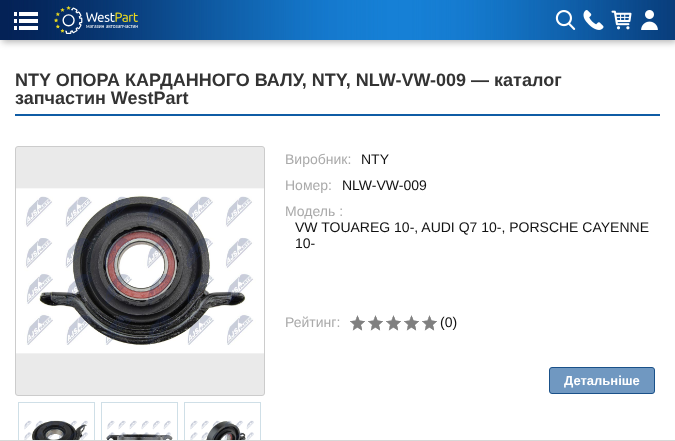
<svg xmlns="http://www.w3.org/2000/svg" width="675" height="441">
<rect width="100%" height="100%" fill="#fff"/>
<rect x="2" y="2" width="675" height="40" fill="#0000004d" filter="blur(3.5px)"/>
<image x="0" y="0" width="675" height="40" href="media/1.png"/>
<image x="14" y="12" width="24" height="18" href="media/2.png"/>
<image x="54" y="6" width="84" height="28" href="media/3.png"/>
<image x="555" y="10" width="21" height="20" href="media/4.png"/>
<image x="583" y="10" width="21" height="20" href="media/5.png"/>
<image x="611" y="10" width="21" height="20" href="media/6.png"/>
<image x="641" y="10" width="17" height="20" href="media/7.png"/>
<rect x="15" y="114" width="645" height="2" fill="#0f5ca5"/>
<text x="15" y="86" style="font-family:Liberation Sans;font-size:18px;font-weight:bold;fill:#333">NTY ОПОРА КАРДАННОГО ВАЛУ, NTY, NLW-VW-009 — каталог</text>
<text x="15" y="104" style="font-family:Liberation Sans;font-size:18px;font-weight:bold;fill:#333">запчастин WestPart</text>
<rect x="15.5" y="146.5" width="249" height="249" rx="2.5" fill="#eaeaea" stroke="#ccc"/>
<image x="16" y="188" width="248" height="166" href="media/8.png"/>
<rect x="18.5" y="402.5" width="76" height="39" fill="none" stroke="#cfdfe7"/>
<image x="24" y="420" width="64" height="20" href="media/9.png"/>
<rect x="101.5" y="402.5" width="76" height="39" fill="none" stroke="#cfdfe7"/>
<image x="106" y="420" width="67" height="20" href="media/10.png"/>
<rect x="184.5" y="402.5" width="76" height="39" fill="none" stroke="#cfdfe7"/>
<image x="190" y="420" width="64" height="20" href="media/11.png"/>
<text x="285" y="164" style="font-family:Liberation Sans;font-size:14px;fill:#aaa">Виробник:</text>
<text x="361" y="164" style="font-family:Liberation Sans;font-size:14px;fill:#111">NTY</text>
<text x="285" y="190" style="font-family:Liberation Sans;font-size:14px;fill:#aaa">Номер:</text>
<text x="342" y="190" style="font-family:Liberation Sans;font-size:14px;fill:#111">NLW-VW-009</text>
<text x="285" y="216" style="font-family:Liberation Sans;font-size:14px;fill:#aaa">Модель :</text>
<text x="295" y="232" style="font-family:Liberation Sans;font-size:14px;fill:#111">VW TOUAREG 10-, AUDI Q7 10-, PORSCHE CAYENNE</text>
<text x="295" y="248" style="font-family:Liberation Sans;font-size:14px;fill:#111">10-</text>
<text x="285" y="327" style="font-family:Liberation Sans;font-size:14px;fill:#aaa">Рейтинг:</text>
<image x="350" y="315" width="15" height="16" href="media/12.png"/>
<image x="368" y="315" width="15" height="16" href="media/12.png"/>
<image x="386" y="315" width="15" height="16" href="media/12.png"/>
<image x="404" y="315" width="15" height="16" href="media/12.png"/>
<image x="422" y="315" width="15" height="16" href="media/12.png"/>
<text x="440" y="327" style="font-family:Liberation Sans;font-size:14px;fill:#111">(0)</text>
<rect x="549.5" y="367.5" width="105" height="26" rx="2.5" fill="#7098c1" stroke="#1a5189"/>
<text x="564" y="385" style="font-family:Liberation Sans;font-size:13px;font-weight:bold;fill:#fff">Детальніше</text>
<rect y="440" width="675" height="1" fill="#d7d7d7"/>
</svg>
